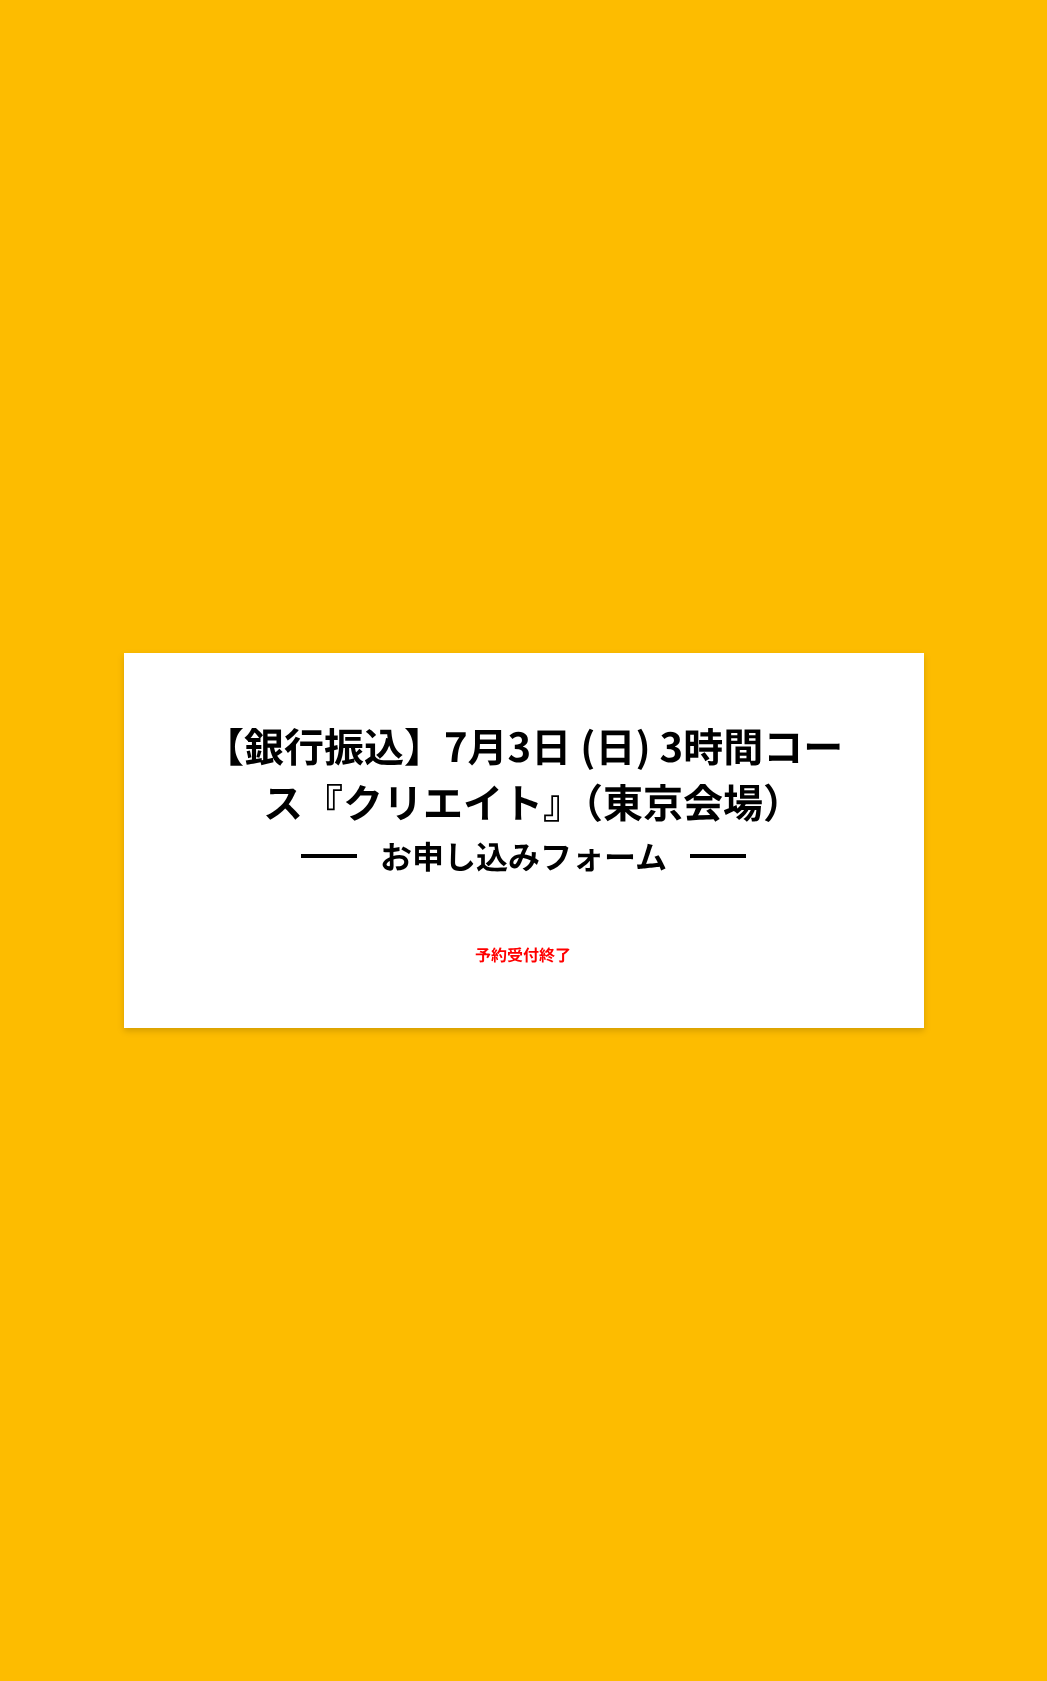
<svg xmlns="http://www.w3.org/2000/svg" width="1047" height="1681">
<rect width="100%" height="100%" fill="#fdbc00"/>
<rect x="124" y="656" width="800" height="375" fill="#00000029" filter="blur(3px)"/>
<rect x="124" y="653" width="800" height="375" fill="#fff"/>
<text x="204" y="762" style="font-family:Noto Sans CJK JP;font-size:40px;font-weight:bold;fill:#000">【銀行振込】7月3日 (日) 3時間コー</text>
<text x="263" y="818" style="font-family:Noto Sans CJK JP;font-size:40px;font-weight:bold;fill:#000">ス『クリエイト』（東京会場）</text>
<rect x="301" y="854" width="56" height="4" fill="#000"/>
<text x="380" y="869" style="font-family:Noto Sans CJK JP;font-size:32px;font-weight:bold;fill:#000">お申し込みフォーム</text>
<rect x="690" y="854" width="56" height="4" fill="#000"/>
<text x="475" y="961" style="font-family:Noto Sans CJK JP;font-size:16px;font-weight:bold;fill:#f00">予約受付終了</text>
</svg>
